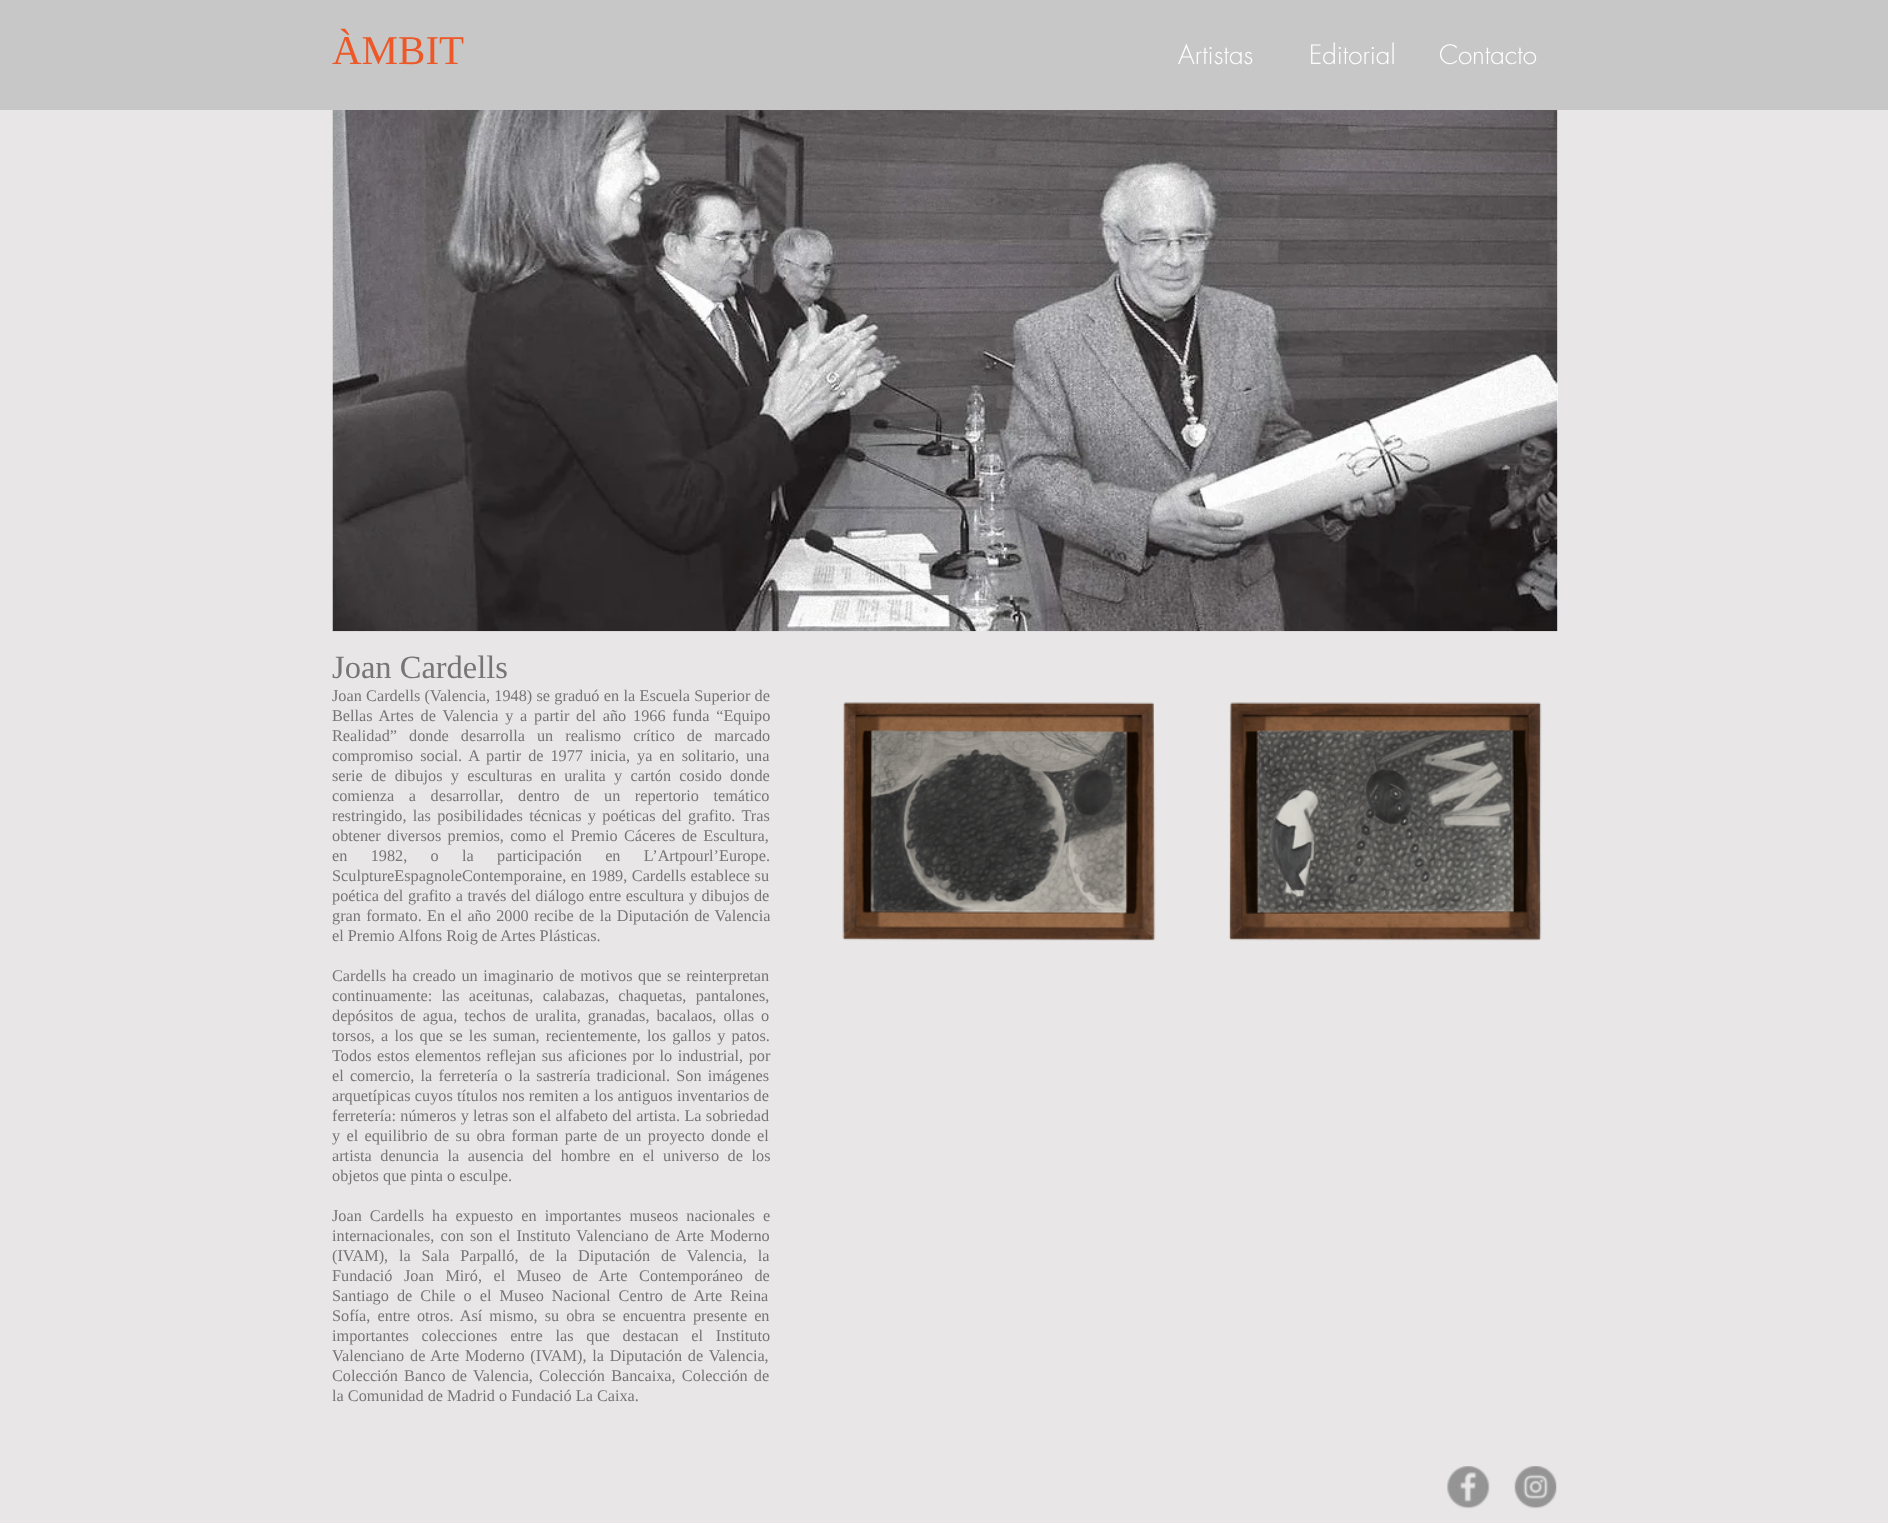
<svg xmlns="http://www.w3.org/2000/svg" width="1888" height="1523">
<rect width="100%" height="100%" fill="#e8e6e6"/>
<rect width="1888" height="110" fill="#c7c7c7"/>
<text x="332" y="64" style="font-family:Liberation Serif;font-size:41px;fill:#ed5829">ÀMBIT</text>
<text x="1178" y="64" style="font-family:futura;font-size:26px;font-weight:300;fill:#fff">Artistas</text>
<text x="1309" y="64" style="font-family:futura;font-size:26px;font-weight:300;fill:#fff">Editorial</text>
<text x="1439" y="64" style="font-family:futura;font-size:26px;font-weight:300;fill:#fff">Contacto</text>
<rect x="1557" y="110" width="1" height="521" fill="#fafafa"/>
<image x="332" y="110" width="1226" height="522" href="media/1.png"/>
<text x="332" y="678" style="font-family:Liberation Serif;font-size:32.5px;fill:#767676">Joan Cardells</text>
<text x="332" y="701" word-spacing="0.25" style="font-family:Liberation Serif;font-size:16.25px;fill:#767676">Joan Cardells (Valencia, 1948) se graduó en la Escuela Superior de</text>
<text x="332" y="721" word-spacing="2.75" style="font-family:Liberation Serif;font-size:16.25px;fill:#767676">Bellas Artes de Valencia y a partir del año 1966 funda “Equipo</text>
<text x="332" y="741" word-spacing="8" style="font-family:Liberation Serif;font-size:16.25px;fill:#767676">Realidad” donde desarrolla un realismo crítico de marcado</text>
<text x="332" y="761" word-spacing="2.9" style="font-family:Liberation Serif;font-size:16.25px;fill:#767676">compromiso social. A partir de 1977 inicia, ya en solitario, una</text>
<text x="332" y="781" word-spacing="4.25" style="font-family:Liberation Serif;font-size:16.25px;fill:#767676">serie de dibujos y esculturas en uralita y cartón cosido donde</text>
<text x="332" y="801" word-spacing="10.5" style="font-family:Liberation Serif;font-size:16.25px;fill:#767676">comienza a desarrollar, dentro de un repertorio temático</text>
<text x="332" y="821" word-spacing="2.25" style="font-family:Liberation Serif;font-size:16.25px;fill:#767676">restringido, las posibilidades técnicas y poéticas del grafito. Tras</text>
<text x="332" y="841" word-spacing="2.25" style="font-family:Liberation Serif;font-size:16.25px;fill:#767676">obtener diversos premios, como el Premio Cáceres de Escultura,</text>
<text x="332" y="861" word-spacing="19.25" style="font-family:Liberation Serif;font-size:16.25px;fill:#767676">en 1982, o la participación en L’Artpourl’Europe.</text>
<text x="332" y="881" word-spacing="0.5" style="font-family:Liberation Serif;font-size:16.25px;fill:#767676">SculptureEspagnoleContemporaine, en 1989, Cardells establece su</text>
<text x="332" y="901" word-spacing="0.5" style="font-family:Liberation Serif;font-size:16.25px;fill:#767676">poética del grafito a través del diálogo entre escultura y dibujos de</text>
<text x="332" y="921" word-spacing="1.25" style="font-family:Liberation Serif;font-size:16.25px;fill:#767676">gran formato. En el año 2000 recibe de la Diputación de Valencia</text>
<text x="332" y="941" style="font-family:Liberation Serif;font-size:16.25px;fill:#767676">el Premio Alfons Roig de Artes Plásticas.</text>
<text x="332" y="981" word-spacing="1.5" style="font-family:Liberation Serif;font-size:16.25px;fill:#767676">Cardells ha creado un imaginario de motivos que se reinterpretan</text>
<text x="332" y="1001" word-spacing="5.25" style="font-family:Liberation Serif;font-size:16.25px;fill:#767676">continuamente: las aceitunas, calabazas, chaquetas, pantalones,</text>
<text x="332" y="1021" word-spacing="2.9" style="font-family:Liberation Serif;font-size:16.25px;fill:#767676">depósitos de agua, techos de uralita, granadas, bacalaos, ollas o</text>
<text x="332" y="1041" word-spacing="2.1" style="font-family:Liberation Serif;font-size:16.25px;fill:#767676">torsos, a los que se les suman, recientemente, los gallos y patos.</text>
<text x="332" y="1061" word-spacing="1.5" style="font-family:Liberation Serif;font-size:16.25px;fill:#767676">Todos estos elementos reflejan sus aficiones por lo industrial, por</text>
<text x="332" y="1081" word-spacing="2.1" style="font-family:Liberation Serif;font-size:16.25px;fill:#767676">el comercio, la ferretería o la sastrería tradicional. Son imágenes</text>
<text x="332" y="1101" word-spacing="0.25" style="font-family:Liberation Serif;font-size:16.25px;fill:#767676">arquetípicas cuyos títulos nos remiten a los antiguos inventarios de</text>
<text x="332" y="1121" word-spacing="0.25" style="font-family:Liberation Serif;font-size:16.25px;fill:#767676">ferretería: números y letras son el alfabeto del artista. La sobriedad</text>
<text x="332" y="1141" word-spacing="2.25" style="font-family:Liberation Serif;font-size:16.25px;fill:#767676">y el equilibrio de su obra forman parte de un proyecto donde el</text>
<text x="332" y="1161" word-spacing="4.5" style="font-family:Liberation Serif;font-size:16.25px;fill:#767676">artista denuncia la ausencia del hombre en el universo de los</text>
<text x="332" y="1181" style="font-family:Liberation Serif;font-size:16.25px;fill:#767676">objetos que pinta o esculpe.</text>
<text x="332" y="1221" word-spacing="4" style="font-family:Liberation Serif;font-size:16.25px;fill:#767676">Joan Cardells ha expuesto en importantes museos nacionales e</text>
<text x="332" y="1241" word-spacing="2" style="font-family:Liberation Serif;font-size:16.25px;fill:#767676">internacionales, con son el Instituto Valenciano de Arte Moderno</text>
<text x="332" y="1261" word-spacing="6.75" style="font-family:Liberation Serif;font-size:16.25px;fill:#767676">(IVAM), la Sala Parpalló, de la Diputación de Valencia, la</text>
<text x="332" y="1281" word-spacing="7.5" style="font-family:Liberation Serif;font-size:16.25px;fill:#767676">Fundació Joan Miró, el Museo de Arte Contemporáneo de</text>
<text x="332" y="1301" word-spacing="4" style="font-family:Liberation Serif;font-size:16.25px;fill:#767676">Santiago de Chile o el Museo Nacional Centro de Arte Reina</text>
<text x="332" y="1321" word-spacing="3" style="font-family:Liberation Serif;font-size:16.25px;fill:#767676">Sofía, entre otros. Así mismo, su obra se encuentra presente en</text>
<text x="332" y="1341" word-spacing="8.75" style="font-family:Liberation Serif;font-size:16.25px;fill:#767676">importantes colecciones entre las que destacan el Instituto</text>
<text x="332" y="1361" word-spacing="1.75" style="font-family:Liberation Serif;font-size:16.25px;fill:#767676">Valenciano de Arte Moderno (IVAM), la Diputación de Valencia,</text>
<text x="332" y="1381" word-spacing="2.1" style="font-family:Liberation Serif;font-size:16.25px;fill:#767676">Colección Banco de Valencia, Colección Bancaixa, Colección de</text>
<text x="332" y="1401" style="font-family:Liberation Serif;font-size:16.25px;fill:#767676">la Comunidad de Madrid o Fundació La Caixa.</text>
<image x="842" y="702" width="314" height="239" href="media/2.png"/>
<image x="1229" y="702" width="313" height="239" href="media/3.png"/>
<image x="1447" y="1466" width="43" height="43" href="media/4.png"/>
<image x="1514" y="1466" width="43" height="43" href="media/5.png"/>
</svg>
